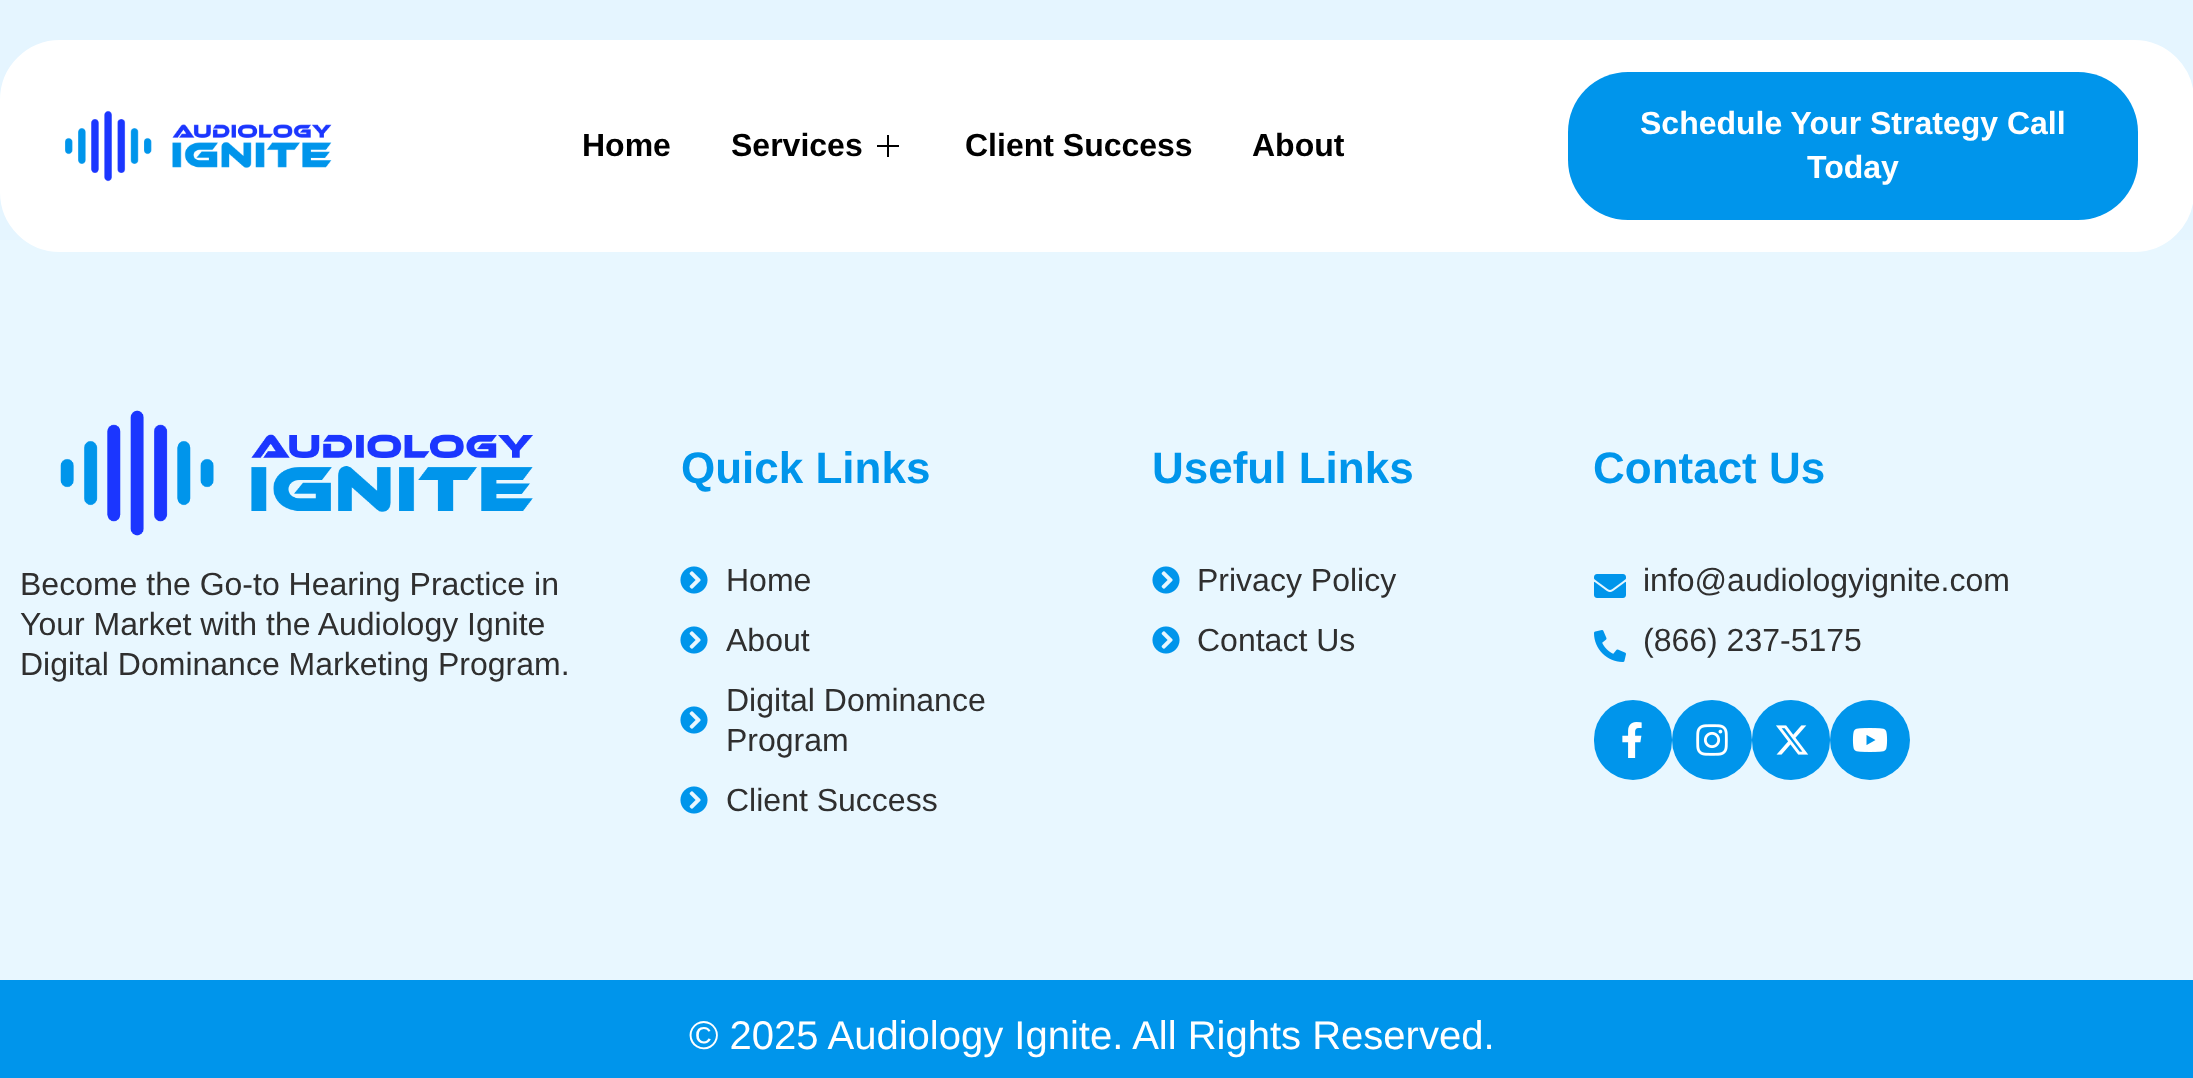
<svg xmlns="http://www.w3.org/2000/svg" width="2193" height="1078">
<rect width="100%" height="100%" fill="#e5f5ff"/>
<rect y="240" width="2193" height="740" fill="#e8f7ff"/>
<rect x="1" y="41" width="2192" height="210" rx="59" fill="#fff" stroke="#fff" stroke-width="2"/>
<image x="65" y="110" width="267" height="72" href="media/1.png"/>
<text x="582" y="156" style="font-family:Liberation Sans;font-size:32px;font-weight:bold;fill:#000">Home</text>
<text x="731" y="156" style="font-family:Liberation Sans;font-size:32px;font-weight:bold;fill:#000">Services</text>
<image x="877" y="135" width="22" height="22" href="media/2.png"/>
<text x="965" y="156" style="font-family:Liberation Sans;font-size:32px;font-weight:bold;fill:#000">Client Success</text>
<text x="1252" y="156" style="font-family:Liberation Sans;font-size:32px;font-weight:bold;fill:#000">About</text>
<rect x="1568" y="72" width="570" height="148" rx="60" fill="#0095eb"/>
<text x="1640" y="134" style="font-family:Liberation Sans;font-size:32px;font-weight:bold;fill:#fff">Schedule Your Strategy Call</text>
<text x="1807" y="178" style="font-family:Liberation Sans;font-size:32px;font-weight:bold;fill:#fff">Today</text>
<image x="60" y="410" width="473" height="126" href="media/3.png"/>
<text x="20" y="595" style="font-family:Liberation Sans;font-size:32px;fill:#2f2f2f">Become the Go-to Hearing Practice in</text>
<text x="20" y="635" style="font-family:Liberation Sans;font-size:32px;fill:#2f2f2f">Your Market with the Audiology Ignite</text>
<text x="20" y="675" style="font-family:Liberation Sans;font-size:32px;fill:#2f2f2f">Digital Dominance Marketing Program.</text>
<text x="681" y="483" style="font-family:Liberation Sans;font-size:44px;font-weight:bold;fill:#0095eb">Quick Links</text>
<image x="680" y="566" width="28" height="28" href="media/4.png"/>
<text x="726" y="591" style="font-family:Liberation Sans;font-size:32px;fill:#2f2f2f">Home</text>
<image x="680" y="626" width="28" height="28" href="media/4.png"/>
<text x="726" y="651" style="font-family:Liberation Sans;font-size:32px;fill:#2f2f2f">About</text>
<image x="680" y="706" width="28" height="28" href="media/4.png"/>
<text x="726" y="711" style="font-family:Liberation Sans;font-size:32px;fill:#2f2f2f">Digital Dominance</text>
<text x="726" y="751" style="font-family:Liberation Sans;font-size:32px;fill:#2f2f2f">Program</text>
<image x="680" y="786" width="28" height="28" href="media/4.png"/>
<text x="726" y="811" style="font-family:Liberation Sans;font-size:32px;fill:#2f2f2f">Client Success</text>
<text x="1152" y="483" style="font-family:Liberation Sans;font-size:44px;font-weight:bold;fill:#0095eb">Useful Links</text>
<image x="1152" y="566" width="28" height="28" href="media/4.png"/>
<text x="1197" y="591" style="font-family:Liberation Sans;font-size:32px;fill:#2f2f2f">Privacy Policy</text>
<image x="1152" y="626" width="28" height="28" href="media/4.png"/>
<text x="1197" y="651" style="font-family:Liberation Sans;font-size:32px;fill:#2f2f2f">Contact Us</text>
<text x="1593" y="483" style="font-family:Liberation Sans;font-size:44px;font-weight:bold;fill:#0095eb">Contact Us</text>
<image x="1594" y="574" width="32" height="24" href="media/5.png"/>
<text x="1643" y="591" style="font-family:Liberation Sans;font-size:32px;fill:#2f2f2f">info@audiologyignite.com</text>
<image x="1594" y="630" width="32" height="32" href="media/6.png"/>
<text x="1643" y="651" style="font-family:Liberation Sans;font-size:32px;fill:#2f2f2f">(866) 237-5175</text>
<rect x="1594" y="700" width="78" height="80" rx="39" fill="#0095eb"/>
<image x="1622" y="722" width="20" height="36" href="media/7.png"/>
<circle cx="1712" cy="740" r="40" fill="#0095eb"/>
<image x="1696" y="724" width="32" height="32" href="media/8.png"/>
<rect x="1752" y="700" width="78" height="80" rx="39" fill="#0095eb"/>
<image x="1776" y="725" width="33" height="30" href="media/9.png"/>
<circle cx="1870" cy="740" r="40" fill="#0095eb"/>
<image x="1852" y="728" width="36" height="24" href="media/10.png"/>
<rect y="980" width="2193" height="98" fill="#0095eb"/>
<text x="689" y="1049" style="font-family:Liberation Sans;font-size:40px;fill:#fff">© 2025 Audiology Ignite. All Rights Reserved.</text>
</svg>
